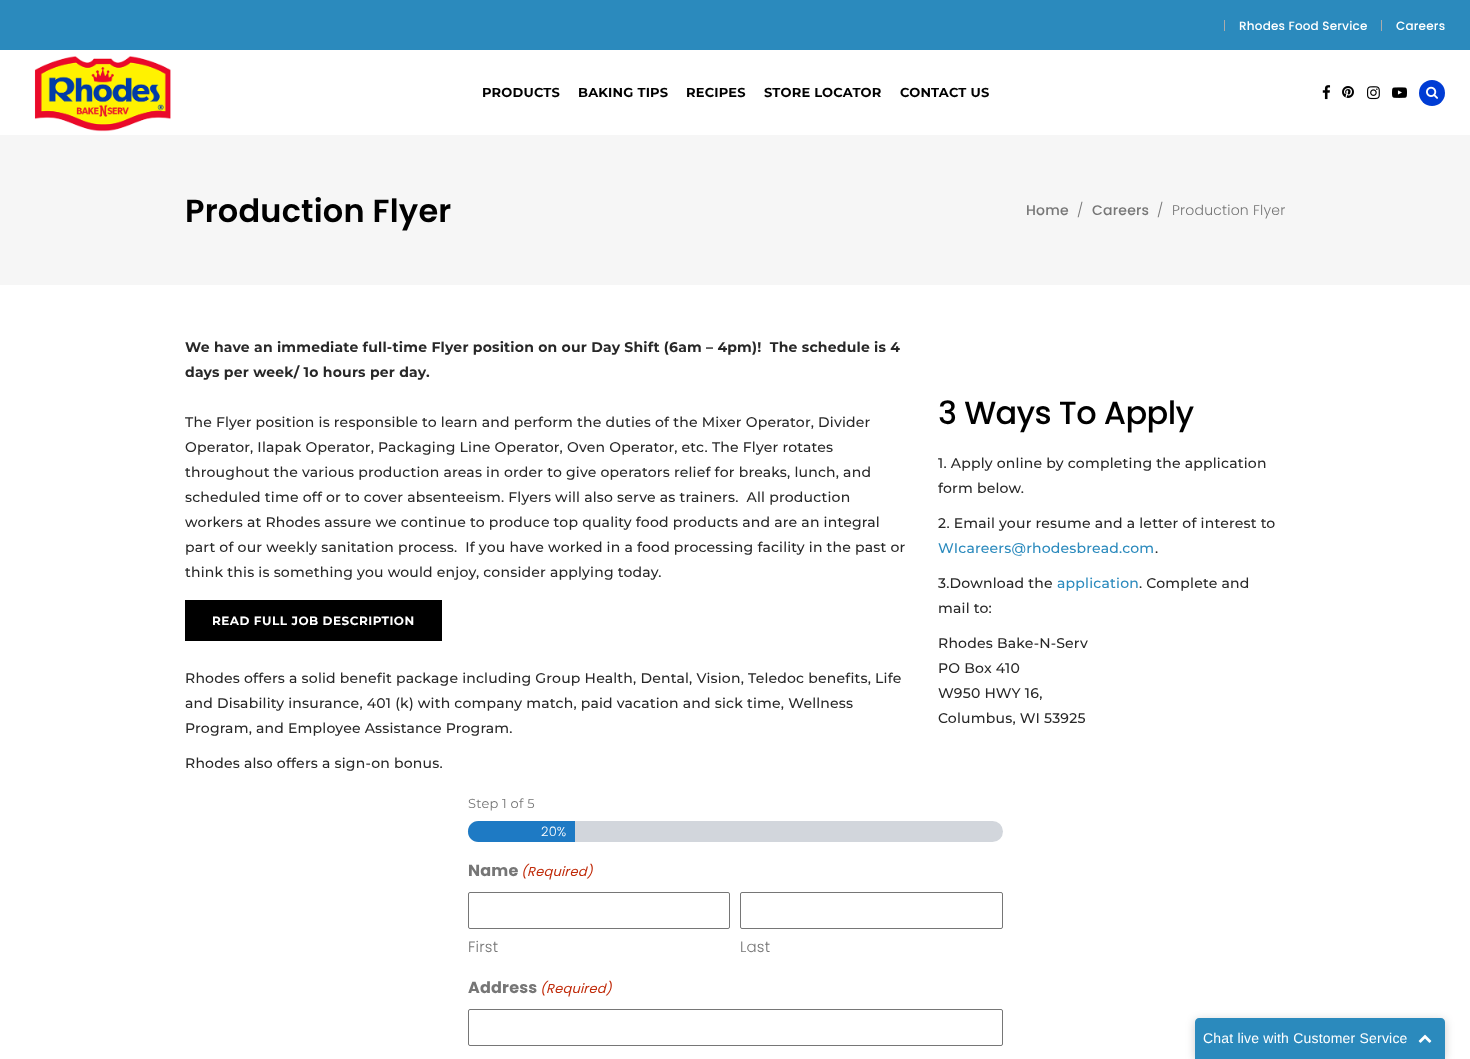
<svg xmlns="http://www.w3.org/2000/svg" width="1470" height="1059">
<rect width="100%" height="100%" fill="#fff"/>
<rect width="1470" height="50" fill="#2b8abd"/>
<rect x="1224" y="20" width="1" height="11" fill="#ababab"/>
<text x="1239" y="30" style="font-family:Poppins;font-size:12px;font-weight:500;letter-spacing:0.2px;fill:#fff">Rhodes Food Service</text>
<rect x="1381" y="20" width="1" height="11" fill="#ababab"/>
<text x="1396" y="30" style="font-family:Poppins;font-size:12px;font-weight:500;letter-spacing:0.2px;fill:#fff">Careers</text>
<image x="34" y="56" width="137" height="76" href="media/1.png"/>
<text x="482" y="97" style="font-family:Montserrat;font-size:13px;font-weight:bold;letter-spacing:0.2px;fill:#000">PRODUCTS</text>
<text x="578" y="97" style="font-family:Montserrat;font-size:13px;font-weight:bold;letter-spacing:0.2px;fill:#000">BAKING TIPS</text>
<text x="686" y="97" style="font-family:Montserrat;font-size:13px;font-weight:bold;letter-spacing:0.2px;fill:#000">RECIPES</text>
<text x="764" y="97" style="font-family:Montserrat;font-size:13px;font-weight:bold;letter-spacing:0.2px;fill:#000">STORE LOCATOR</text>
<text x="900" y="97" style="font-family:Montserrat;font-size:13px;font-weight:bold;letter-spacing:0.2px;fill:#000">CONTACT US</text>
<image x="1322" y="85" width="9" height="15" href="media/2.png"/>
<image x="1342" y="86" width="12" height="12" href="media/3.png"/>
<image x="1367" y="86" width="13" height="14" href="media/4.png"/>
<image x="1392" y="87" width="15" height="11" href="media/5.png"/>
<circle cx="1432" cy="93" r="13" fill="#003cd4"/>
<image x="1426" y="86" width="12" height="13" href="media/6.png"/>
<rect y="135" width="1470" height="150" fill="#f6f6f6"/>
<text x="185" y="222" style="font-family:Poppins;font-size:32px;font-weight:600;letter-spacing:0.2px;fill:#000">Production Flyer</text>
<text x="1026" y="215" style="font-family:Poppins;font-size:14px;font-weight:500;letter-spacing:0.2px;fill:#767676">Home</text>
<text x="1077" y="215" style="font-family:Poppins;font-size:14px;font-weight:300;letter-spacing:0.2px;fill:#767676">/</text>
<text x="1092" y="215" style="font-family:Poppins;font-size:14px;font-weight:500;letter-spacing:0.2px;fill:#767676">Careers</text>
<text x="1157" y="215" style="font-family:Poppins;font-size:14px;font-weight:300;letter-spacing:0.2px;fill:#767676">/</text>
<text x="1172" y="215" style="font-family:Poppins;font-size:14px;font-weight:300;letter-spacing:0.2px;fill:#767676">Production Flyer</text>
<text x="185" y="352" style="font-family:Montserrat;font-size:14px;font-weight:bold;letter-spacing:0.2px;fill:#282828" xml:space="preserve">We have an immediate full-time Flyer position on our Day Shift (6am – 4pm)!  The schedule is 4</text>
<text x="185" y="377" style="font-family:Montserrat;font-size:14px;font-weight:bold;letter-spacing:0.2px;fill:#282828">days per week/ 1o hours per day.</text>
<text x="185" y="427" style="font-family:Montserrat;font-size:14px;font-weight:500;letter-spacing:0.2px;fill:#282828">The Flyer position is responsible to learn and perform the duties of the Mixer Operator, Divider</text>
<text x="185" y="452" style="font-family:Montserrat;font-size:14px;font-weight:500;letter-spacing:0.2px;fill:#282828">Operator, Ilapak Operator, Packaging Line Operator, Oven Operator, etc. The Flyer rotates</text>
<text x="185" y="477" style="font-family:Montserrat;font-size:14px;font-weight:500;letter-spacing:0.2px;fill:#282828">throughout the various production areas in order to give operators relief for breaks, lunch, and</text>
<text x="185" y="502" style="font-family:Montserrat;font-size:14px;font-weight:500;letter-spacing:0.2px;fill:#282828" xml:space="preserve">scheduled time off or to cover absenteeism. Flyers will also serve as trainers.  All production</text>
<text x="185" y="527" style="font-family:Montserrat;font-size:14px;font-weight:500;letter-spacing:0.2px;fill:#282828">workers at Rhodes assure we continue to produce top quality food products and are an integral</text>
<text x="185" y="552" style="font-family:Montserrat;font-size:14px;font-weight:500;letter-spacing:0.2px;fill:#282828" xml:space="preserve">part of our weekly sanitation process.  If you have worked in a food processing facility in the past or</text>
<text x="185" y="577" style="font-family:Montserrat;font-size:14px;font-weight:500;letter-spacing:0.2px;fill:#282828">think this is something you would enjoy, consider applying today.</text>
<rect x="185" y="600" width="257" height="41" fill="#000"/>
<text x="212" y="625" style="font-family:Montserrat;font-size:12px;font-weight:bold;letter-spacing:0.5px;fill:#fff">READ FULL JOB DESCRIPTION</text>
<text x="185" y="683" style="font-family:Montserrat;font-size:14px;font-weight:500;letter-spacing:0.2px;fill:#282828">Rhodes offers a solid benefit package including Group Health, Dental, Vision, Teledoc benefits, Life</text>
<text x="185" y="708" style="font-family:Montserrat;font-size:14px;font-weight:500;letter-spacing:0.2px;fill:#282828">and Disability insurance, 401 (k) with company match, paid vacation and sick time, Wellness</text>
<text x="185" y="733" style="font-family:Montserrat;font-size:14px;font-weight:500;letter-spacing:0.2px;fill:#282828">Program, and Employee Assistance Program.</text>
<text x="185" y="768" style="font-family:Montserrat;font-size:14px;font-weight:500;letter-spacing:0.2px;fill:#282828">Rhodes also offers a sign-on bonus.</text>
<text x="938" y="424" style="font-family:Poppins;font-size:32px;font-weight:500;letter-spacing:-0.6px;fill:#000">3 Ways To Apply</text>
<text x="938" y="468" style="font-family:Montserrat;font-size:14px;font-weight:500;letter-spacing:0.2px;fill:#282828">1. Apply online by completing the application</text>
<text x="938" y="493" style="font-family:Montserrat;font-size:14px;font-weight:500;letter-spacing:0.2px;fill:#282828">form below.</text>
<text x="938" y="528" style="font-family:Montserrat;font-size:14px;font-weight:500;letter-spacing:0.2px;fill:#282828">2. Email your resume and a letter of interest to</text>
<text x="938" y="553" style="font-family:Montserrat;font-size:14px;font-weight:500;letter-spacing:0.2px;fill:#2b8abd">WIcareers@rhodesbread.com</text>
<text x="1155" y="553" style="font-family:Montserrat;font-size:14px;font-weight:500;letter-spacing:0.2px;fill:#282828">.</text>
<text x="938" y="588" style="font-family:Montserrat;font-size:14px;font-weight:500;letter-spacing:0.2px;fill:#282828">3.Download the</text>
<text x="1057" y="588" style="font-family:Montserrat;font-size:14px;font-weight:500;letter-spacing:0.2px;fill:#2b8abd">application</text>
<text x="1139" y="588" style="font-family:Montserrat;font-size:14px;font-weight:500;letter-spacing:0.2px;fill:#282828">. Complete and</text>
<text x="938" y="613" style="font-family:Montserrat;font-size:14px;font-weight:500;letter-spacing:0.2px;fill:#282828">mail to:</text>
<text x="938" y="648" style="font-family:Montserrat;font-size:14px;font-weight:500;letter-spacing:0.2px;fill:#282828">Rhodes Bake-N-Serv</text>
<text x="938" y="673" style="font-family:Montserrat;font-size:14px;font-weight:500;letter-spacing:0.2px;fill:#282828">PO Box 410</text>
<text x="938" y="698" style="font-family:Montserrat;font-size:14px;font-weight:500;letter-spacing:0.2px;fill:#282828">W950 HWY 16,</text>
<text x="938" y="723" style="font-family:Montserrat;font-size:14px;font-weight:500;letter-spacing:0.2px;fill:#282828">Columbus, WI 53925</text>
<text x="468" y="808" style="font-family:Montserrat;font-size:13px;font-weight:100;letter-spacing:0.2px;fill:#767676">Step 1 of 5</text>
<rect x="468" y="821" width="535" height="21" rx="10.5" fill="#d2d6dc"/>
<path d="M478.5 821h96.5v21h-96.5c-6 0-10.5-4.5-10.5-10.5c0-6 4.5-10.5 10.5-10.5z" fill="#1e7ac4"/>
<text x="541" y="836" style="font-family:Poppins;font-size:13px;font-weight:300;letter-spacing:0.2px;fill:#fff">20%</text>
<text x="468" y="876" style="font-family:Poppins;font-size:16px;font-weight:bold;letter-spacing:0.2px;fill:#767676">Name</text>
<text x="521" y="876" style="font-family:Poppins;font-size:13px;font-style:italic;letter-spacing:0.2px;fill:#c02b0a">(Required)</text>
<rect x="468.5" y="892.5" width="261" height="36" rx="1.5" fill="none" stroke="#767676"/>
<text x="468" y="952" style="font-family:Poppins;font-size:15px;font-weight:300;letter-spacing:0.2px;fill:#767676">First</text>
<rect x="740.5" y="892.5" width="262" height="36" rx="1.5" fill="none" stroke="#767676"/>
<text x="740" y="952" style="font-family:Poppins;font-size:15px;font-weight:300;letter-spacing:0.2px;fill:#767676">Last</text>
<text x="468" y="993" style="font-family:Poppins;font-size:16px;font-weight:bold;letter-spacing:0.2px;fill:#767676">Address</text>
<text x="540" y="993" style="font-family:Poppins;font-size:13px;font-style:italic;letter-spacing:0.2px;fill:#c02b0a">(Required)</text>
<rect x="468.5" y="1009.5" width="534" height="36" rx="1.5" fill="none" stroke="#767676"/>
<rect x="1195" y="1020" width="250" height="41" rx="4" fill="#00000033" filter="blur(5px)"/>
<path d="M1199 1018h242c2 0 4 2 4 4v37h-250v-37c0-2 2-4 4-4z" fill="#2b8abd"/>
<text x="1203" y="1043" style="font-family:Liberation Sans;font-size:14px;letter-spacing:0.2px;fill:#fff">Chat live with Customer Service</text>
<image x="1418" y="1034" width="14" height="9" href="media/7.png"/>
</svg>
